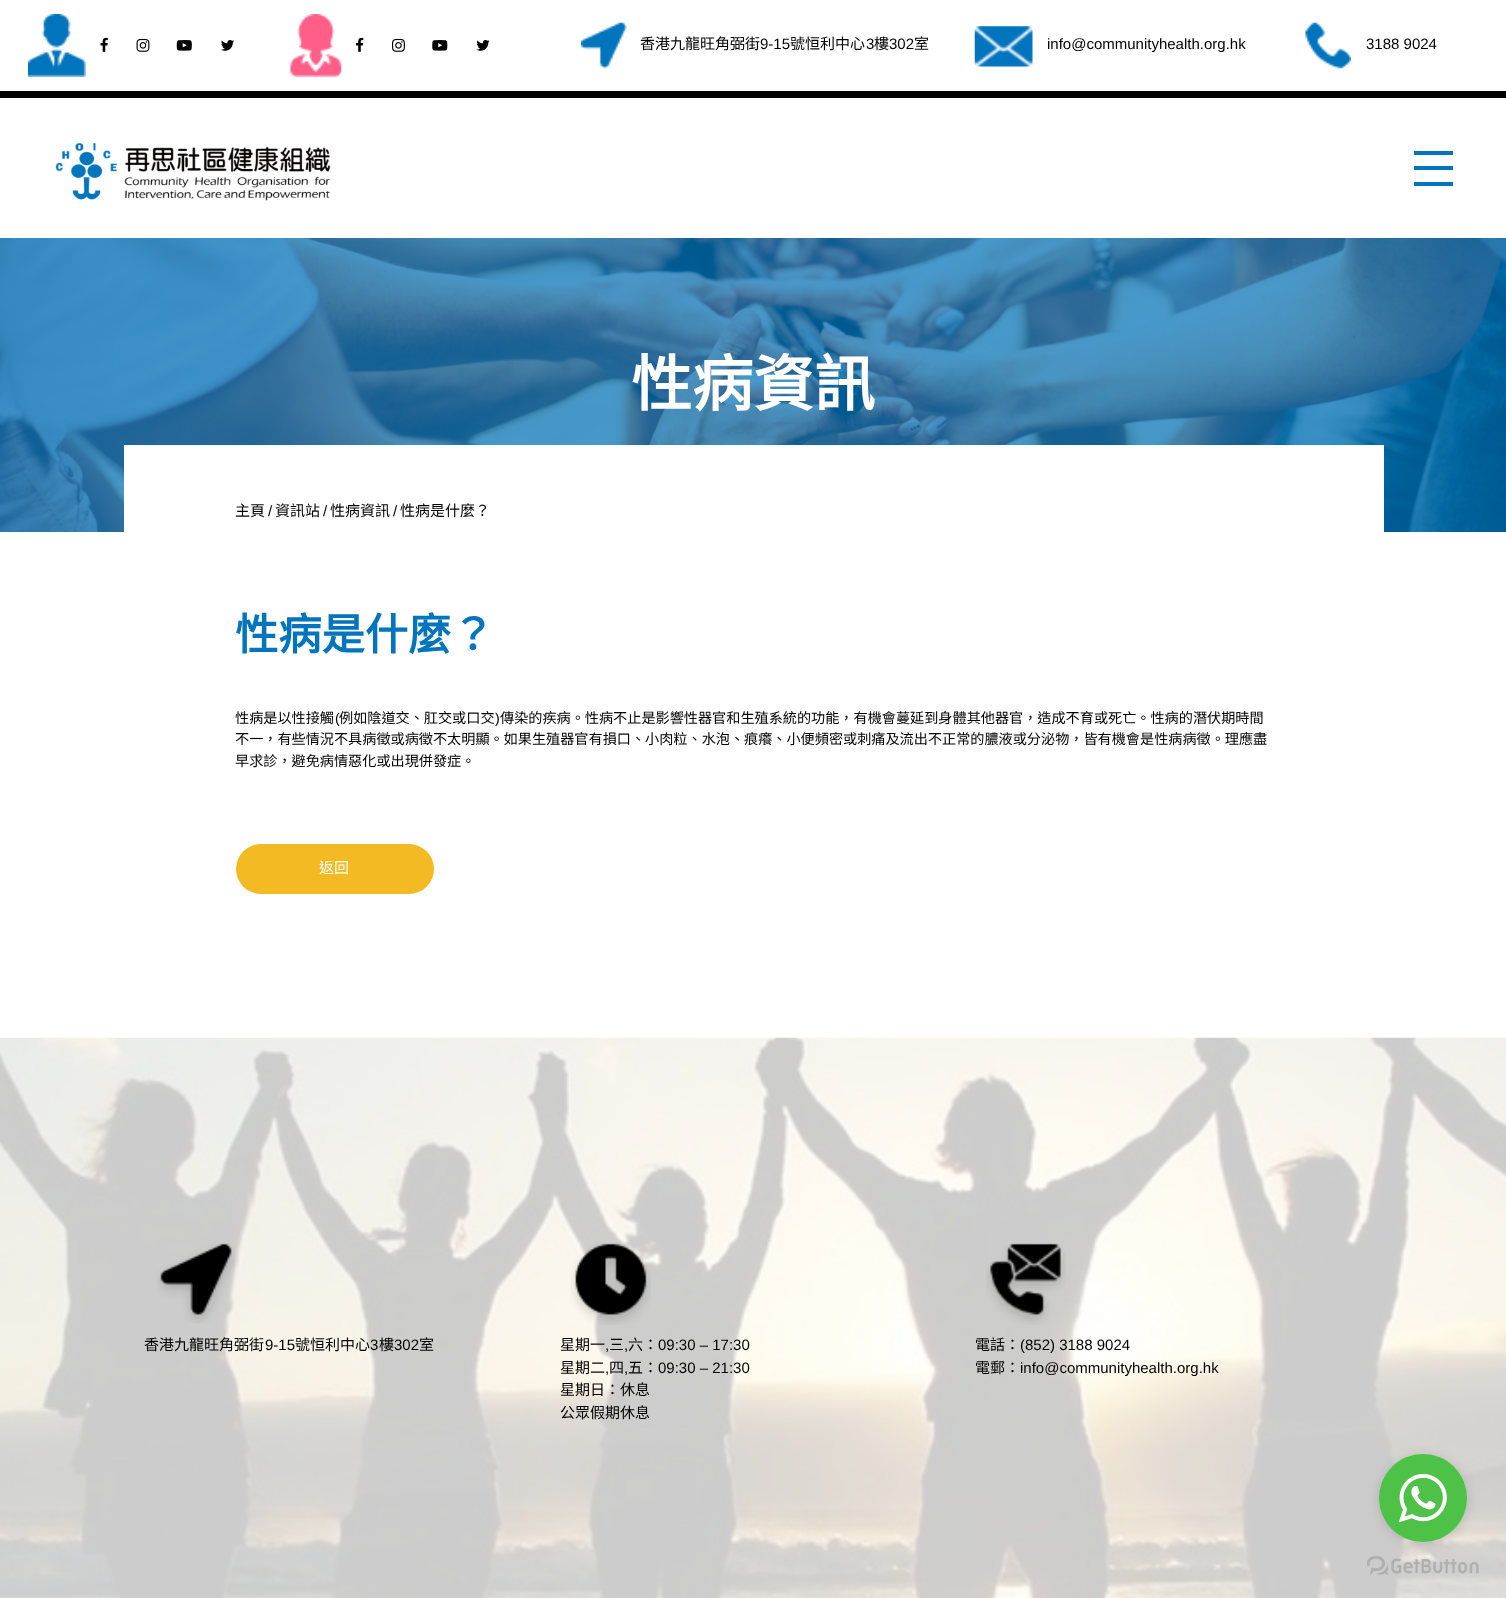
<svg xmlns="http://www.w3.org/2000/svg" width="1506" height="1598">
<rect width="100%" height="100%" fill="#fff"/>
<rect y="91" width="1506" height="7" fill="#000"/>
<image x="28" y="14" width="58" height="63" href="media/1.png"/>
<image x="100" y="37" width="8" height="15" href="media/2.png"/>
<image x="136" y="38" width="14" height="14" href="media/3.png"/>
<image x="176" y="40" width="16" height="11" href="media/4.png"/>
<image x="221" y="40" width="13" height="11" href="media/5.png"/>
<image x="290" y="14" width="52" height="63" href="media/6.png"/>
<image x="356" y="37" width="8" height="15" href="media/7.png"/>
<image x="392" y="38" width="13" height="14" href="media/8.png"/>
<image x="432" y="40" width="16" height="11" href="media/9.png"/>
<image x="476" y="40" width="14" height="11" href="media/10.png"/>
<image x="581" y="22" width="46" height="47" href="media/11.png"/>
<text x="640" y="49" style="font-family:Noto Sans CJK HK;font-size:15px;fill:#000">香港九龍旺角弼街</text>
<text x="760" y="49" style="font-family:Liberation Sans;font-size:15px;fill:#000">9-15</text>
<text x="790" y="49" style="font-family:Noto Sans CJK HK;font-size:15px;fill:#000">號恒利中心</text>
<text x="866" y="49" style="font-family:Liberation Sans;font-size:15px;fill:#000">3</text>
<text x="874" y="49" style="font-family:Noto Sans CJK HK;font-size:15px;fill:#000">樓</text>
<text x="889" y="49" style="font-family:Liberation Sans;font-size:15px;fill:#000">302</text>
<text x="914" y="49" style="font-family:Noto Sans CJK HK;font-size:15px;fill:#000">室</text>
<image x="974" y="26" width="59" height="41" href="media/12.png"/>
<text x="1047" y="49" style="font-family:Liberation Sans;font-size:15px;fill:#000">info@communityhealth.org.hk</text>
<image x="1305" y="22" width="46" height="47" href="media/13.png"/>
<text x="1366" y="49" style="font-family:Liberation Sans;font-size:15px;fill:#000">3188 9024</text>
<image x="55" y="143" width="276" height="58" href="media/14.png"/>
<rect x="1414" y="151" width="39" height="4" fill="#0075bd"/>
<rect x="1414" y="166" width="39" height="4" fill="#0075bd"/>
<rect x="1414" y="182" width="39" height="4" fill="#0075bd"/>
<image x="0" y="238" width="1506" height="294" href="media/15.png"/>
<text x="631" y="406" style="font-family:Noto Sans CJK HK;font-size:61px;font-weight:bold;fill:#fff">性病資訊</text>
<rect x="124" y="445" width="1260" height="87" fill="#fff"/>
<text x="235" y="516" style="font-family:Noto Sans CJK HK;font-size:15px;fill:#000">主頁</text>
<text x="268" y="516" style="font-family:Liberation Sans;font-size:15px;fill:#000">/</text>
<text x="275" y="516" style="font-family:Noto Sans CJK HK;font-size:15px;fill:#000">資訊站</text>
<text x="323" y="516" style="font-family:Liberation Sans;font-size:15px;fill:#000">/</text>
<text x="330" y="516" style="font-family:Noto Sans CJK HK;font-size:15px;fill:#000">性病資訊</text>
<text x="393" y="516" style="font-family:Liberation Sans;font-size:15px;fill:#000">/</text>
<text x="400" y="516" style="font-family:Noto Sans CJK HK;font-size:15px;fill:#000">性病是什麼？</text>
<text x="235" y="650" style="font-family:Noto Sans CJK HK;font-size:43.25px;font-weight:bold;fill:#0075bd">性病是什麼？</text>
<text x="235" y="723" style="font-family:Noto Sans CJK HK;font-size:14.15px;fill:#000">性病是以性接觸</text>
<text x="335" y="723" style="font-family:Liberation Sans;font-size:14.15px;fill:#000">(</text>
<text x="339" y="723" style="font-family:Noto Sans CJK HK;font-size:14.15px;fill:#000">例如陰道交、肛交或口交</text>
<text x="495" y="723" style="font-family:Liberation Sans;font-size:14.15px;fill:#000">)</text>
<text x="500" y="723" style="font-family:Noto Sans CJK HK;font-size:14.15px;fill:#000">傳染的疾病。性病不止是影響性器官和生殖系統的功能，有機會蔓延到身體其他器官，造成不育或死亡。性病的潛伏期時間</text>
<text x="235" y="744" style="font-family:Noto Sans CJK HK;font-size:14.15px;fill:#000">不一，有些情況不具病徵或病徵不太明顯。如果生殖器官有損口、小肉粒、水泡、痕癢、小便頻密或刺痛及流出不正常的膿液或分泌物，皆有機會是性病病徵。理應盡</text>
<text x="235" y="766" style="font-family:Noto Sans CJK HK;font-size:14.15px;fill:#000">早求診，避免病情惡化或出現併發症。</text>
<rect x="236" y="844" width="198" height="50" rx="25" fill="#f4ba23"/>
<text x="319" y="873" style="font-family:Noto Sans CJK HK;font-size:15px;fill:#fff">返回</text>
<image x="0" y="1037" width="1506" height="561" href="media/16.png"/>
<image x="157" y="1243" width="78" height="80" href="media/17.png"/>
<text x="144" y="1350" style="font-family:Noto Sans CJK HK;font-size:15px;fill:#000">香港九龍旺角弼街</text>
<text x="265" y="1350" style="font-family:Liberation Sans;font-size:15px;fill:#000">9-15</text>
<text x="295" y="1350" style="font-family:Noto Sans CJK HK;font-size:15px;fill:#000">號恒利中心</text>
<text x="370" y="1350" style="font-family:Liberation Sans;font-size:15px;fill:#000">3</text>
<text x="379" y="1350" style="font-family:Noto Sans CJK HK;font-size:15px;fill:#000">樓</text>
<text x="394" y="1350" style="font-family:Liberation Sans;font-size:15px;fill:#000">302</text>
<text x="419" y="1350" style="font-family:Noto Sans CJK HK;font-size:15px;fill:#000">室</text>
<image x="570" y="1243" width="81" height="82" href="media/18.png"/>
<text x="560" y="1350" style="font-family:Noto Sans CJK HK;font-size:15px;fill:#000">星期一</text>
<text x="605" y="1350" style="font-family:Liberation Sans;font-size:15px;fill:#000">,</text>
<text x="609" y="1350" style="font-family:Noto Sans CJK HK;font-size:15px;fill:#000">三</text>
<text x="624" y="1350" style="font-family:Liberation Sans;font-size:15px;fill:#000">,</text>
<text x="628" y="1350" style="font-family:Noto Sans CJK HK;font-size:15px;fill:#000">六：</text>
<text x="658" y="1350" style="font-family:Liberation Sans;font-size:15px;fill:#000">09:30 – 17:30</text>
<text x="560" y="1373" style="font-family:Noto Sans CJK HK;font-size:15px;fill:#000">星期二</text>
<text x="605" y="1373" style="font-family:Liberation Sans;font-size:15px;fill:#000">,</text>
<text x="609" y="1373" style="font-family:Noto Sans CJK HK;font-size:15px;fill:#000">四</text>
<text x="624" y="1373" style="font-family:Liberation Sans;font-size:15px;fill:#000">,</text>
<text x="628" y="1373" style="font-family:Noto Sans CJK HK;font-size:15px;fill:#000">五：</text>
<text x="658" y="1373" style="font-family:Liberation Sans;font-size:15px;fill:#000">09:30 – 21:30</text>
<text x="560" y="1395" style="font-family:Noto Sans CJK HK;font-size:15px;fill:#000">星期日：休息</text>
<text x="560" y="1418" style="font-family:Noto Sans CJK HK;font-size:15px;fill:#000">公眾假期休息</text>
<image x="986" y="1243" width="80" height="82" href="media/19.png"/>
<text x="975" y="1350" style="font-family:Noto Sans CJK HK;font-size:15px;fill:#000">電話：</text>
<text x="1020" y="1350" style="font-family:Liberation Sans;font-size:15px;fill:#000">(852) 3188 9024</text>
<text x="975" y="1373" style="font-family:Noto Sans CJK HK;font-size:15px;fill:#000">電郵：</text>
<text x="1020" y="1373" style="font-family:Liberation Sans;font-size:15px;fill:#000">info@communityhealth.org.hk</text>
<image x="1367" y="1556" width="112" height="19" href="media/21.png"/>
<rect x="1379" y="1456" width="88" height="88" rx="44" fill="#88888866" filter="blur(6px)"/>
<circle cx="1423" cy="1498" r="44" fill="#4dc247"/>
<image x="1398" y="1473" width="49" height="50" href="media/20.png"/>
</svg>
